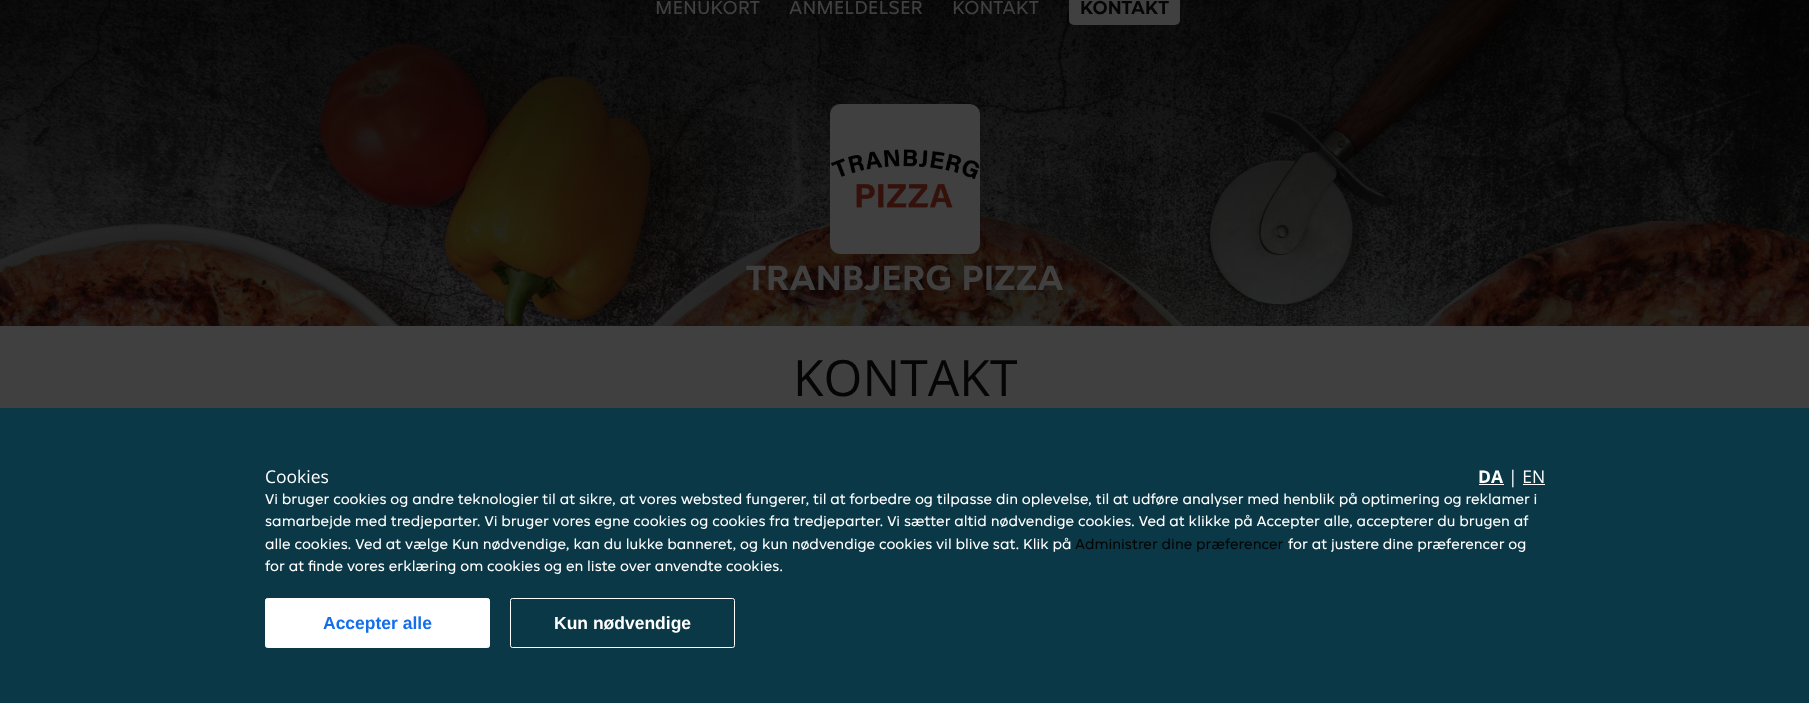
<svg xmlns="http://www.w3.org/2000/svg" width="1809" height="703">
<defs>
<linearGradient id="g1" gradientUnits="userSpaceOnUse" x1="905" y1="0" x2="905" y2="625"><stop offset="0" stop-color="#000" stop-opacity="0.7"/><stop offset="0.33" stop-color="#000" stop-opacity="0.4"/><stop offset="0.67" stop-color="#000" stop-opacity="0.2"/><stop offset="1" stop-color="#000" stop-opacity="0"/></linearGradient>
</defs>
<rect width="100%" height="100%" fill="#fff"/>
<image x="0" y="0" width="1809" height="326" href="media/1.png"/>
<rect width="1809" height="326" fill="url(#g1)"/>
<text x="655" y="14" style="font-family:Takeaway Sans;font-size:20px;fill:#404040">MENUKORT</text>
<text x="789" y="14" style="font-family:Takeaway Sans;font-size:20px;fill:#404040">ANMELDELSER</text>
<text x="952" y="14" style="font-family:Takeaway Sans;font-size:20px;fill:#404040">KONTAKT</text>
<rect x="1069" y="-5" width="111" height="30" rx="5" fill="#404040"/>
<text x="1080" y="14" style="font-family:Takeaway Sans;font-size:20px;font-weight:bold;fill:#050505">KONTAKT</text>
<rect x="830" y="104" width="150" height="150" rx="10" fill="#404040"/>
<image x="830" y="149" width="150" height="59" href="media/2.png"/>
<text x="746" y="290" style="font-family:Takeaway Sans;font-size:37.5px;font-weight:bold;fill:#404040">TRANBJERG PIZZA</text>
<rect y="326" width="1809" height="82" fill="#404040"/>
<text x="793" y="396" style="font-family:Open Sans;font-size:50px;fill:#050505">KONTAKT</text>
<rect y="408" width="1809" height="295" fill="#0a3847"/>
<text x="265" y="483" style="font-family:Open Sans;font-size:17.5px;fill:#fff">Cookies</text>
<text x="1478" y="483" style="font-family:Open Sans;font-size:17.5px;font-weight:bold;fill:#fff">DA</text>
<rect x="1479" y="484" width="25" height="1" fill="#fff"/>
<text x="1508" y="483" style="font-family:Open Sans;font-size:17.5px;fill:#fff">| EN</text>
<rect x="1523" y="484" width="22" height="1" fill="#fff"/>
<text x="265" y="504" style="font-family:Takeaway Sans;font-size:15px;fill:#fff">Vi bruger cookies og andre teknologier til at sikre, at vores websted fungerer, til at forbedre og tilpasse din oplevelse, til at udføre analyser med henblik på optimering og reklamer i</text>
<text x="265" y="526" style="font-family:Takeaway Sans;font-size:15px;fill:#fff">samarbejde med tredjeparter. Vi bruger vores egne cookies og cookies fra tredjeparter. Vi sætter altid nødvendige cookies. Ved at klikke på Accepter alle, accepterer du brugen af</text>
<text x="265" y="549" style="font-family:Takeaway Sans;font-size:15px;fill:#fff">alle cookies. Ved at vælge Kun nødvendige, kan du lukke banneret, og kun nødvendige cookies vil blive sat. Klik på</text>
<text x="1075" y="549" style="font-family:Takeaway Sans;font-size:15px;fill:#050505">Administrer dine præferencer</text>
<text x="1288" y="549" style="font-family:Takeaway Sans;font-size:15px;fill:#fff">for at justere dine præferencer og</text>
<text x="265" y="571" style="font-family:Takeaway Sans;font-size:15px;fill:#fff">for at finde vores erklæring om cookies og en liste over anvendte cookies.</text>
<rect x="265.5" y="598.5" width="224" height="49" rx="2" fill="#fff" stroke="#fff"/>
<text x="323" y="629" style="font-family:Liberation Sans;font-size:17.5px;font-weight:bold;fill:#146eeb">Accepter alle</text>
<rect x="510.5" y="598.5" width="224" height="49" rx="2" fill="none" stroke="#fff"/>
<text x="554" y="629" style="font-family:Liberation Sans;font-size:17.5px;font-weight:bold;fill:#fff">Kun nødvendige</text>
</svg>
